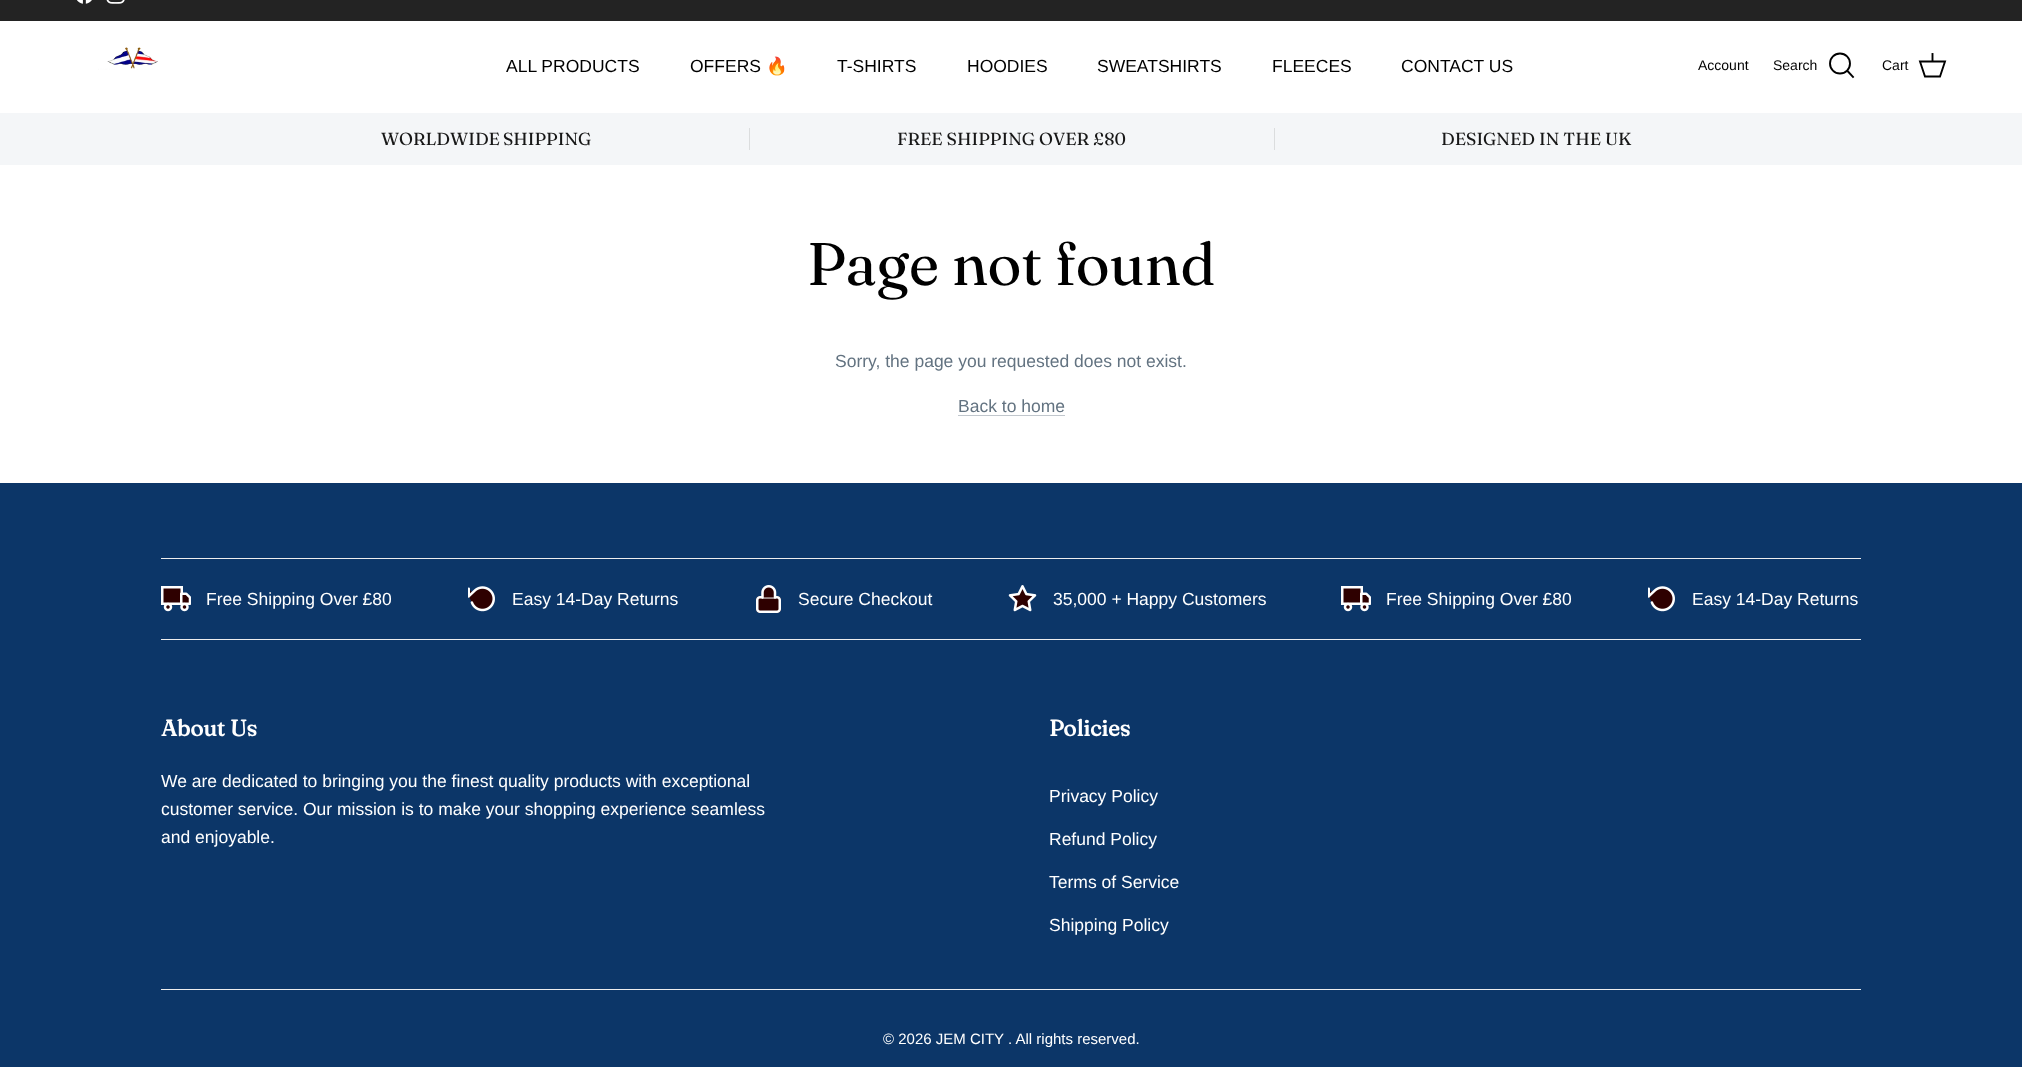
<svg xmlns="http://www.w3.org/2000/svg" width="2022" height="1067">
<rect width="100%" height="100%" fill="#fff"/>
<rect width="2022" height="21" fill="#232323"/>
<image x="77" y="0" width="15" height="4" href="media/1.png"/>
<image x="106" y="0" width="19" height="4" href="media/2.png"/>
<image x="98" y="47" width="60" height="23" href="media/3.png"/>
<text x="506" y="72" style="font-family:Liberation Sans;font-size:17.5px;fill:#000">ALL PRODUCTS</text>
<text x="690" y="72" style="font-family:Liberation Sans;font-size:17.5px;fill:#000">OFFERS</text>
<text x="766" y="72" style="font-family:Noto Color Emoji;font-size:17.5px;fill:#000">🔥</text>
<text x="837" y="72" style="font-family:Liberation Sans;font-size:17.5px;fill:#000">T-SHIRTS</text>
<text x="967" y="72" style="font-family:Liberation Sans;font-size:17.5px;fill:#000">HOODIES</text>
<text x="1097" y="72" style="font-family:Liberation Sans;font-size:17.5px;fill:#000">SWEATSHIRTS</text>
<text x="1272" y="72" style="font-family:Liberation Sans;font-size:17.5px;fill:#000">FLEECES</text>
<text x="1401" y="72" style="font-family:Liberation Sans;font-size:17.5px;fill:#000">CONTACT US</text>
<text x="1698" y="70" style="font-family:Liberation Sans;font-size:14px;fill:#000">Account</text>
<text x="1773" y="70" style="font-family:Liberation Sans;font-size:14px;fill:#000">Search</text>
<circle cx="1840" cy="63.5" r="10" fill="none" stroke="#000" stroke-width="1.9"/>
<path d="M1847.5 71l5.5 6" fill="none" stroke="#000" stroke-width="1.9" stroke-linecap="square"/>
<text x="1882" y="70" style="font-family:Liberation Sans;font-size:14px;fill:#000">Cart</text>
<path d="M1920 61.5h25l-5 15h-15z" fill="none" stroke="#000" stroke-width="1.9"/>
<path d="M1932.5 61v-7" fill="none" stroke="#000" stroke-width="1.9" stroke-linecap="square"/>
<rect y="113" width="2022" height="52" fill="#f4f6f8"/>
<text x="381" y="145" word-spacing="-1" style="font-family:'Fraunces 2';font-size:17.5px;fill:#171717">WORLDWIDE SHIPPING</text>
<rect x="749" y="128" width="1" height="22" fill="#dbddde"/>
<text x="897" y="145" style="font-family:'Fraunces 2';font-size:17.5px;fill:#171717">FREE SHIPPING OVER £80</text>
<rect x="1274" y="128" width="1" height="22" fill="#dbddde"/>
<text x="1441" y="145" style="font-family:'Fraunces 2';font-size:17.5px;fill:#171717">DESIGNED IN THE UK</text>
<text x="807" y="285" style="font-family:Fraunces;font-size:60px;fill:#000">Page not found</text>
<text x="835" y="367" style="font-family:Liberation Sans;font-size:17.5px;fill:#637381">Sorry, the page you requested does not exist.</text>
<text x="958" y="412" style="font-family:Liberation Sans;font-size:17.5px;fill:#637381">Back to home</text>
<rect x="958" y="415" width="107" height="1" fill="#c1c7cd"/>
<rect y="483" width="2022" height="584" fill="#0c3668"/>
<rect x="161" y="558" width="1700" height="1" fill="#eee"/>
<rect x="161" y="639" width="1700" height="1" fill="#eee"/>
<image x="161" y="586" width="30" height="26" href="media/4.png"/>
<text x="206" y="605" style="font-family:Liberation Sans;font-size:17.5px;fill:#fff">Free Shipping Over £80</text>
<image x="468" y="586" width="27" height="26" href="media/5.png"/>
<text x="512" y="605" style="font-family:Liberation Sans;font-size:17.5px;fill:#fff">Easy 14-Day Returns</text>
<image x="756" y="585" width="25" height="28" href="media/6.png"/>
<text x="798" y="605" style="font-family:Liberation Sans;font-size:17.5px;fill:#fff">Secure Checkout</text>
<image x="1008" y="585" width="29" height="27" href="media/7.png"/>
<text x="1053" y="605" style="font-family:Liberation Sans;font-size:17.5px;fill:#fff">35,000 + Happy Customers</text>
<image x="1341" y="586" width="30" height="26" href="media/4.png"/>
<text x="1386" y="605" style="font-family:Liberation Sans;font-size:17.5px;fill:#fff">Free Shipping Over £80</text>
<image x="1648" y="586" width="27" height="26" href="media/5.png"/>
<text x="1692" y="605" style="font-family:Liberation Sans;font-size:17.5px;fill:#fff">Easy 14-Day Returns</text>
<text x="161" y="736" style="font-family:Fraunces;font-size:22.5px;font-weight:bold;fill:#fff">About Us</text>
<text x="161" y="787" style="font-family:Liberation Sans;font-size:17.5px;fill:#fff">We are dedicated to bringing you the finest quality products with exceptional</text>
<text x="161" y="815" style="font-family:Liberation Sans;font-size:17.5px;fill:#fff">customer service. Our mission is to make your shopping experience seamless</text>
<text x="161" y="843" style="font-family:Liberation Sans;font-size:17.5px;fill:#fff">and enjoyable.</text>
<text x="1049" y="736" style="font-family:Fraunces;font-size:22.5px;font-weight:bold;fill:#fff">Policies</text>
<text x="1049" y="802" style="font-family:Liberation Sans;font-size:17.5px;fill:#fff">Privacy Policy</text>
<text x="1049" y="845" style="font-family:Liberation Sans;font-size:17.5px;fill:#fff">Refund Policy</text>
<text x="1049" y="888" style="font-family:Liberation Sans;font-size:17.5px;fill:#fff">Terms of Service</text>
<text x="1049" y="931" style="font-family:Liberation Sans;font-size:17.5px;fill:#fff">Shipping Policy</text>
<rect x="161" y="989" width="1700" height="1" fill="#eee"/>
<text x="883" y="1044" style="font-family:Liberation Sans;font-size:15px;fill:#fff">© 2026 JEM CITY . All rights reserved.</text>
</svg>
